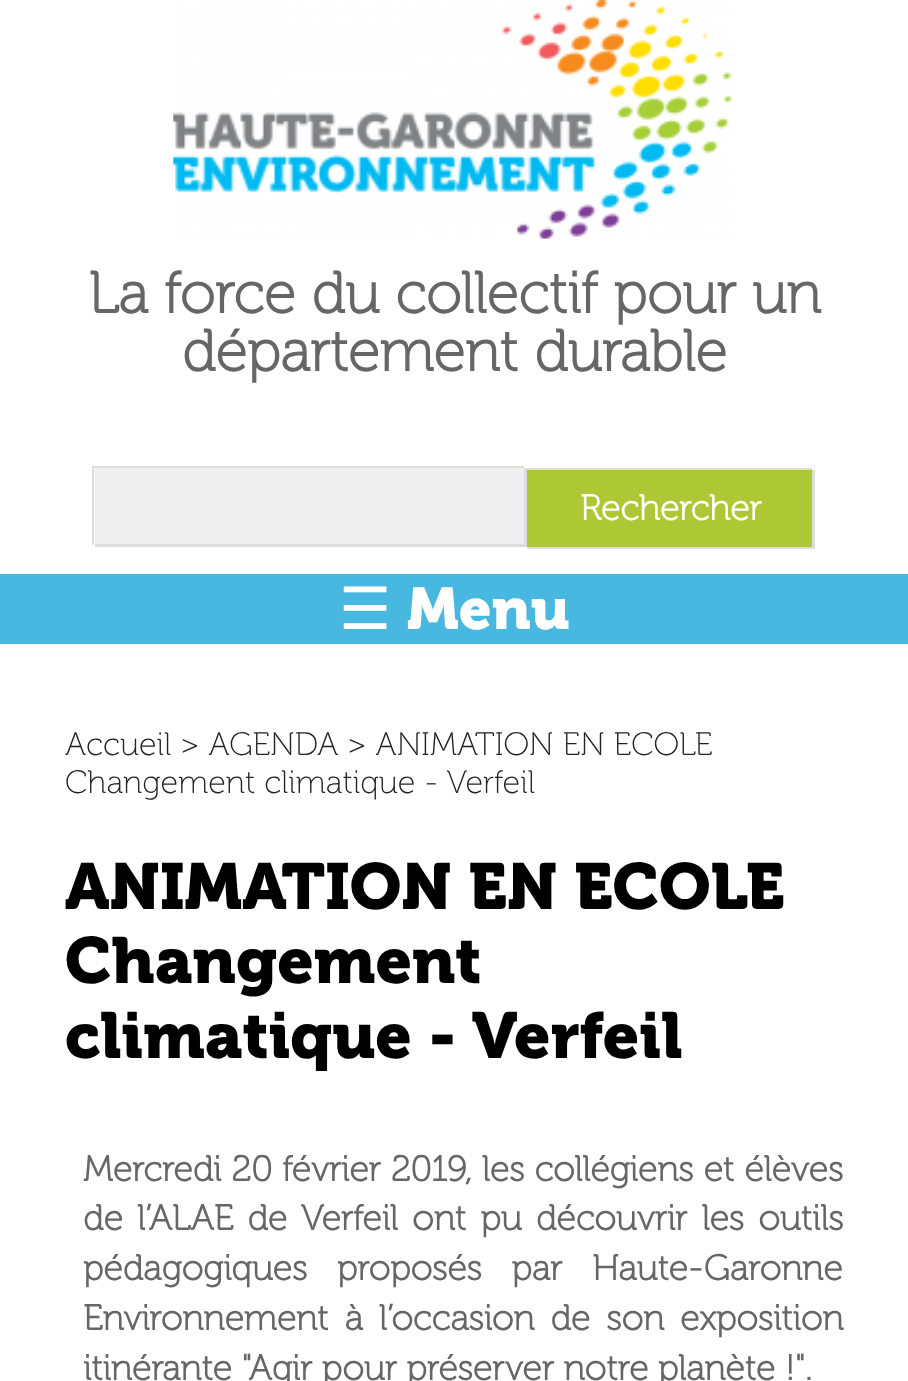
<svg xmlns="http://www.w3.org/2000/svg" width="908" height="1381">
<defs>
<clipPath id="clip1"><rect x="95" y="468" width="432" height="79"/></clipPath>
<clipPath id="clip2"><rect x="527" y="470" width="288" height="79"/></clipPath>
</defs>
<rect width="100%" height="100%" fill="#fff"/>
<image x="173" y="0" width="559" height="239" href="media/1.png"/>
<text x="88" y="313" style="font-family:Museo;font-size:58.25px;font-weight:bold;fill:#666">La force du collectif pour un</text>
<text x="182" y="371" style="font-family:Museo;font-size:58.25px;font-weight:bold;fill:#666">département durable</text>
<path d="M92 466v79h2v-77h430v-2z" fill="#ddd"/>
<rect x="95" y="468" width="429" height="76" fill="#efefef"/>
<g clip-path="url(#clip1)">
<path d="M-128 245h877v525h-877zm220 221h432v78h-432z" fill="#ddd" fill-rule="evenodd"/>
</g>
<path d="M524 468v79h2v-77h286v-2z" fill="#ddd"/>
<rect x="527" y="470" width="285" height="77" fill="#aec734"/>
<g clip-path="url(#clip2)">
<path d="M304 248h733v524h-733zm220 220h288v79h-288z" fill="#ddd" fill-rule="evenodd"/>
</g>
<text x="580" y="520" style="font-family:Museo;font-size:35.6px;font-weight:bold;fill:#fff">Rechercher</text>
<rect y="574" width="908" height="70" fill="#48b8e1"/>
<text x="339" y="629" style="font-family:DejaVu Sans;font-size:58.25px;fill:#fff">☰</text>
<text x="407" y="629" style="font-family:Museo;font-size:58.25px;font-weight:600;fill:#fff">Menu</text>
<text x="65" y="755" style="font-family:Museo;font-size:32.4px;font-weight:200;fill:#222">Accueil &gt; AGENDA &gt; ANIMATION EN ECOLE</text>
<text x="65" y="793" style="font-family:Museo;font-size:32.4px;font-weight:200;fill:#222">Changement climatique - Verfeil</text>
<text x="65" y="909" style="font-family:Museo;font-size:64.75px;font-weight:600;fill:#000">ANIMATION EN ECOLE</text>
<text x="65" y="983" style="font-family:Museo;font-size:64.75px;font-weight:600;fill:#000">Changement</text>
<text x="65" y="1058" style="font-family:Museo;font-size:64.75px;font-weight:600;fill:#000">climatique - Verfeil</text>
<text x="83" y="1181" word-spacing="0.25" style="font-family:Museo;font-size:35.6px;font-weight:bold;fill:#666">Mercredi 20 février 2019, les collégiens et élèves</text>
<text x="83" y="1230" word-spacing="4.5" style="font-family:Museo;font-size:35.6px;font-weight:bold;fill:#666">de l’ALAE de Verfeil ont pu découvrir les outils</text>
<text x="83" y="1280" word-spacing="20" style="font-family:Museo;font-size:35.6px;font-weight:bold;fill:#666">pédagogiques proposés par Haute-Garonne</text>
<text x="83" y="1330" word-spacing="6.25" style="font-family:Museo;font-size:35.6px;font-weight:bold;fill:#666">Environnement à l’occasion de son exposition</text>
<text x="83" y="1380" style="font-family:Museo;font-size:35.6px;font-weight:bold;fill:#666">itinérante "Agir pour préserver notre planète !".</text>
</svg>
